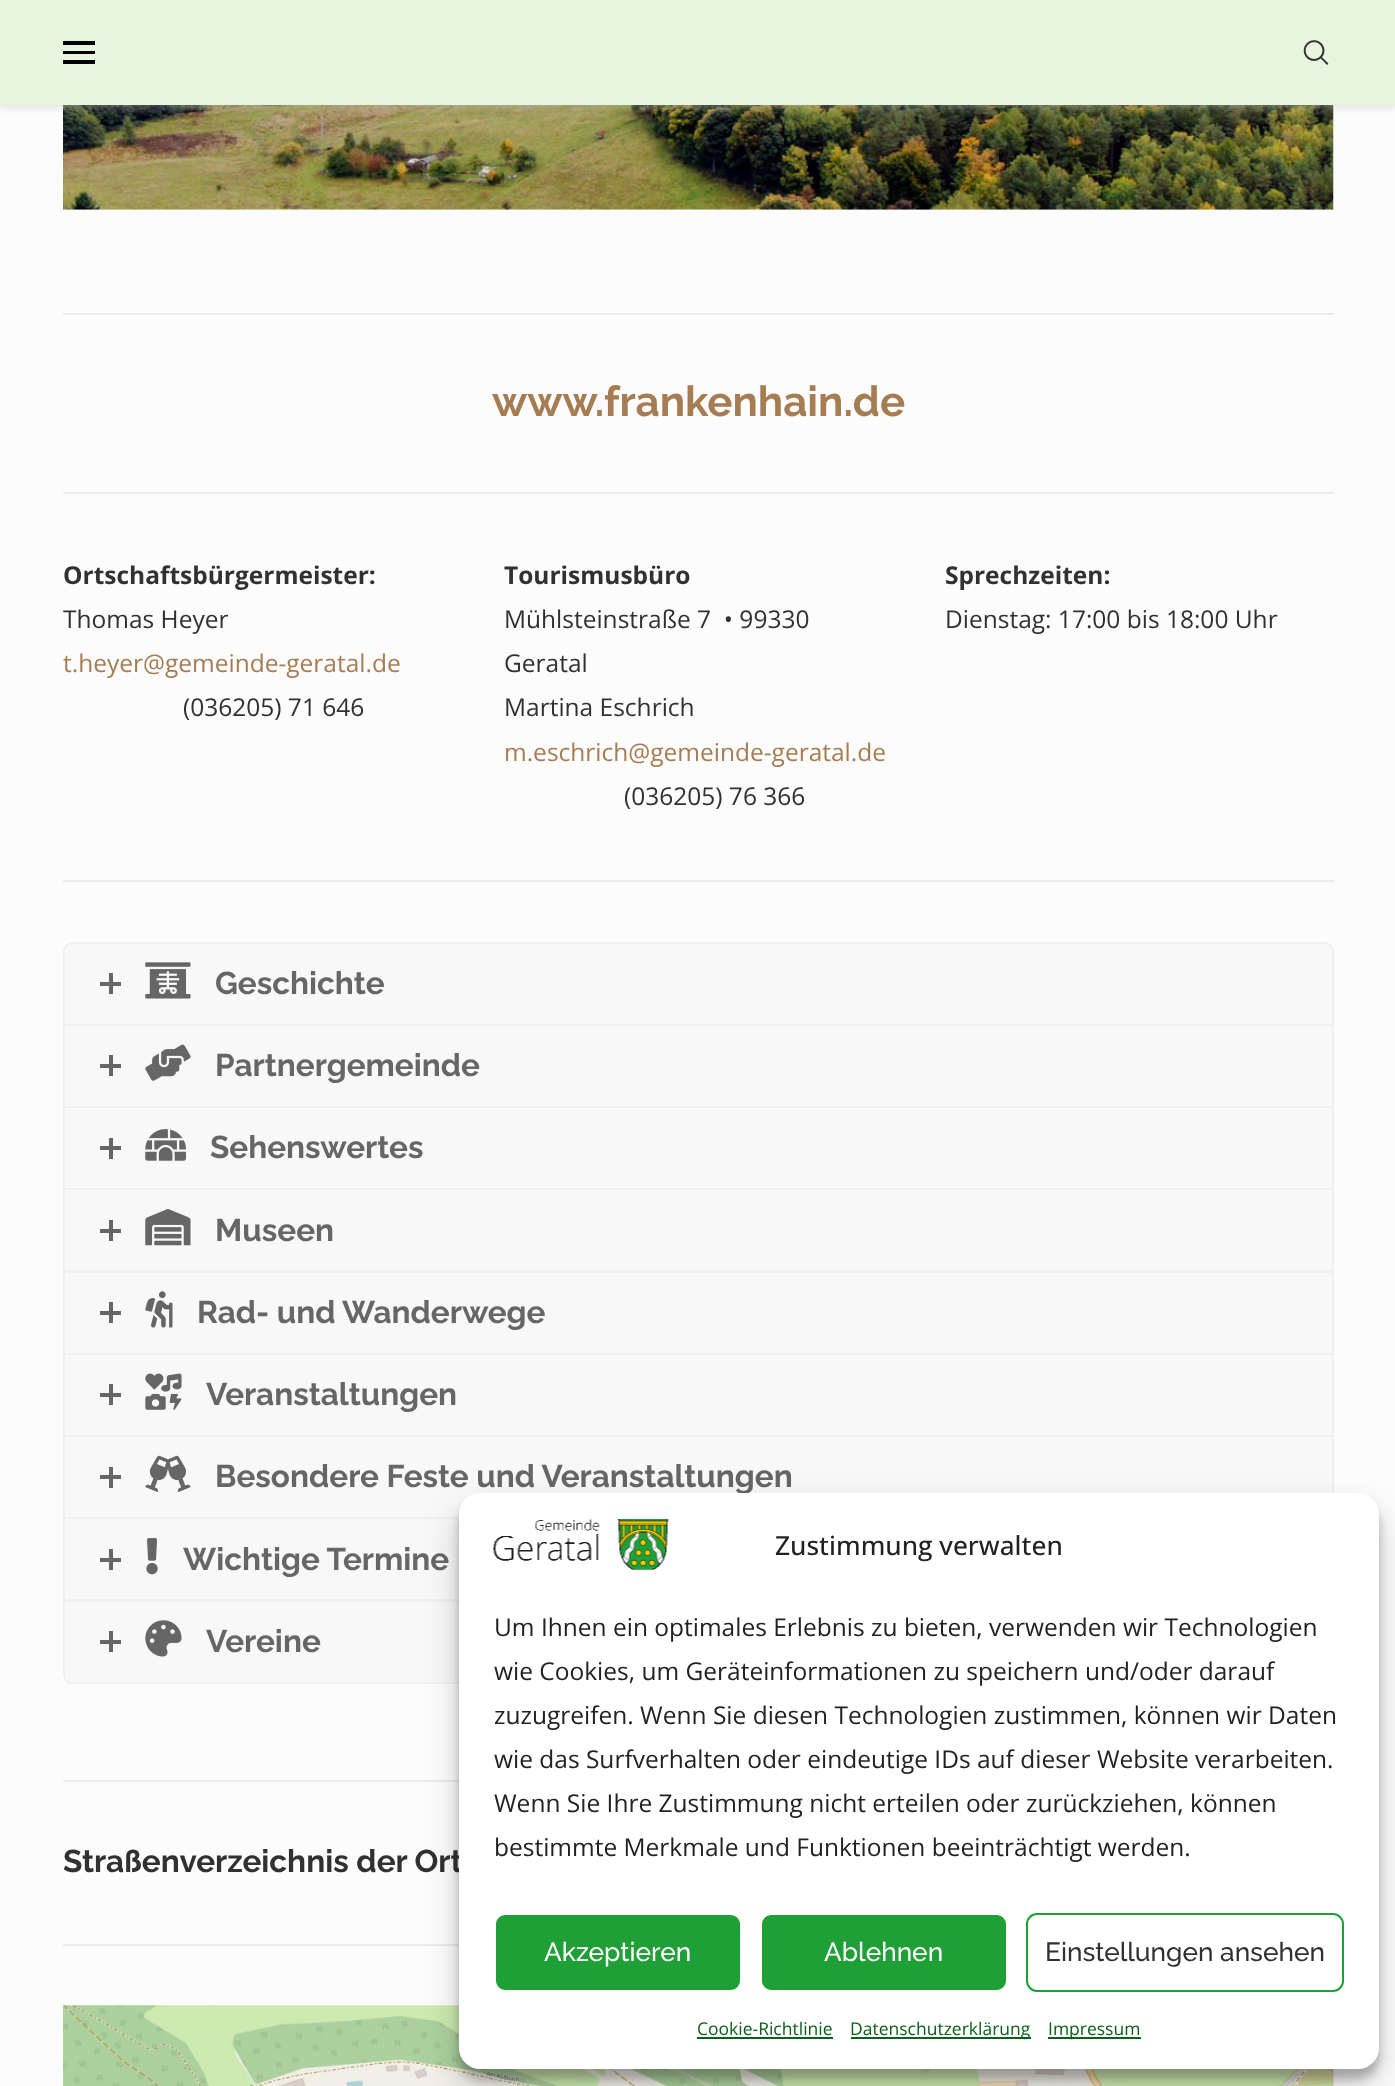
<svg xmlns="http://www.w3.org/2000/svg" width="1395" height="2086">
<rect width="100%" height="100%" fill="#fcfcfc"/>
<image x="63" y="105" width="1271" height="105" href="media/2.png"/>
<rect y="2" width="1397" height="105" fill="#bebebe75" filter="blur(4.5px)"/>
<rect width="1395" height="105" fill="#e7f4de"/>
<rect x="63" y="41" width="32" height="4" fill="#000"/>
<rect x="63" y="51" width="32" height="3" fill="#000"/>
<rect x="63" y="60" width="32" height="4" fill="#000"/>
<image x="1303" y="40" width="26" height="25" href="media/1.png"/>
<rect x="63" y="313" width="1271" height="2" fill="#ebebeb"/>
<text x="492" y="416" style="font-family:Raleway;font-size:42px;font-weight:bold;fill:#a67c52">www.frankenhain.de</text>
<rect x="63" y="492" width="1271" height="2" fill="#ebebeb"/>
<text x="63" y="584" style="font-family:Open Sans;font-size:24.5px;font-weight:bold;fill:#313131">Ortschaftsbürgermeister:</text>
<text x="63" y="628" style="font-family:Open Sans;font-size:24.5px;fill:#313131">Thomas Heyer</text>
<text x="63" y="672" style="font-family:Open Sans;font-size:24.5px;fill:#a67c52">t.heyer@gemeinde-geratal.de</text>
<text x="183" y="716" style="font-family:Open Sans;font-size:24.5px;fill:#313131">(036205) 71 646</text>
<text x="504" y="584" style="font-family:Open Sans;font-size:24.5px;font-weight:bold;fill:#313131">Tourismusbüro</text>
<text x="504" y="628" style="font-family:Open Sans;font-size:24.5px;fill:#313131" xml:space="preserve">Mühlsteinstraße 7  • 99330</text>
<text x="504" y="672" style="font-family:Open Sans;font-size:24.5px;fill:#313131">Geratal</text>
<text x="504" y="716" style="font-family:Open Sans;font-size:24.5px;fill:#313131">Martina Eschrich</text>
<text x="504" y="761" style="font-family:Open Sans;font-size:24.5px;fill:#a67c52">m.eschrich@gemeinde-geratal.de</text>
<text x="624" y="805" style="font-family:Open Sans;font-size:24.5px;fill:#313131">(036205) 76 366</text>
<text x="945" y="584" style="font-family:Open Sans;font-size:24.5px;font-weight:bold;fill:#313131">Sprechzeiten:</text>
<text x="945" y="628" style="font-family:Open Sans;font-size:24.5px;fill:#313131">Dienstag: 17:00 bis 18:00 Uhr</text>
<rect x="63" y="880" width="1271" height="2" fill="#ebebeb"/>
<rect x="63" y="942" width="1271" height="742" fill="#fffdf4"/>
<path d="M72 943h1253c4.5 0 8 3.5 8 8v74h-1269v-74c0-4.5 3.5-8 8-8z" fill="#f8f8f8" stroke="#f0f0f0" stroke-width="2"/>
<rect x="100" y="982" width="21" height="4" fill="#666"/>
<rect x="109" y="973" width="4" height="21" fill="#666"/>
<image x="145" y="962" width="46" height="37" href="media/3.png"/>
<text x="215" y="994" style="font-family:Raleway;font-size:31.5px;font-weight:bold;fill:#666">Geschichte</text>
<rect x="64" y="1025" width="1269" height="82" fill="#f8f8f8" stroke="#f0f0f0" stroke-width="2"/>
<rect x="100" y="1064" width="21" height="4" fill="#666"/>
<rect x="109" y="1055" width="4" height="21" fill="#666"/>
<image x="145" y="1044" width="46" height="37" href="media/4.png"/>
<text x="215" y="1076" style="font-family:Raleway;font-size:31.5px;font-weight:bold;fill:#666">Partnergemeinde</text>
<rect x="64" y="1107" width="1269" height="82" fill="#f8f8f8" stroke="#f0f0f0" stroke-width="2"/>
<rect x="100" y="1146" width="21" height="4" fill="#666"/>
<rect x="109" y="1138" width="4" height="21" fill="#666"/>
<image x="145" y="1129" width="41" height="32" href="media/5.png"/>
<text x="210" y="1158" style="font-family:Raleway;font-size:31.5px;font-weight:bold;fill:#666">Sehenswertes</text>
<rect x="64" y="1189" width="1269" height="82" fill="#f8f8f8" stroke="#f0f0f0" stroke-width="2"/>
<rect x="100" y="1229" width="21" height="4" fill="#666"/>
<rect x="109" y="1220" width="4" height="21" fill="#666"/>
<image x="145" y="1209" width="46" height="37" href="media/6.png"/>
<text x="215" y="1241" style="font-family:Raleway;font-size:31.5px;font-weight:bold;fill:#666">Museen</text>
<rect x="64" y="1272" width="1269" height="82" fill="#f8f8f8" stroke="#f0f0f0" stroke-width="2"/>
<rect x="100" y="1311" width="21" height="4" fill="#666"/>
<rect x="109" y="1302" width="4" height="21" fill="#666"/>
<image x="145" y="1291" width="28" height="37" href="media/7.png"/>
<text x="197" y="1323" style="font-family:Raleway;font-size:31.5px;font-weight:bold;fill:#666">Rad- und Wanderwege</text>
<rect x="64" y="1354" width="1269" height="82" fill="#f8f8f8" stroke="#f0f0f0" stroke-width="2"/>
<rect x="100" y="1393" width="21" height="4" fill="#666"/>
<rect x="109" y="1384" width="4" height="21" fill="#666"/>
<image x="145" y="1373" width="37" height="37" href="media/8.png"/>
<text x="206" y="1405" style="font-family:Raleway;font-size:31.5px;font-weight:bold;fill:#666">Veranstaltungen</text>
<rect x="64" y="1436" width="1269" height="82" fill="#f8f8f8" stroke="#f0f0f0" stroke-width="2"/>
<rect x="100" y="1475" width="21" height="4" fill="#666"/>
<rect x="109" y="1467" width="4" height="21" fill="#666"/>
<image x="145" y="1455" width="46" height="37" href="media/9.png"/>
<text x="215" y="1487" style="font-family:Raleway;font-size:31.5px;font-weight:bold;fill:#666">Besondere Feste und Veranstaltungen</text>
<rect x="65" y="1519" width="394" height="80" fill="#f8f8f8"/>
<rect x="64" y="1518" width="1269" height="82" fill="none" stroke="#f0f0f0" stroke-width="2"/>
<rect x="100" y="1558" width="21" height="4" fill="#666"/>
<rect x="109" y="1549" width="4" height="21" fill="#666"/>
<image x="146" y="1538" width="12" height="37" href="media/10.png"/>
<text x="183" y="1570" style="font-family:Raleway;font-size:31.5px;font-weight:bold;fill:#666">Wichtige Termine</text>
<path d="M64 1601h1269v74c0 4.5-3.5 8-8 8h-1253c-4.5 0-8-3.5-8-8z" fill="#f8f8f8" stroke="#f0f0f0" stroke-width="2"/>
<rect x="100" y="1640" width="21" height="4" fill="#666"/>
<rect x="109" y="1631" width="4" height="21" fill="#666"/>
<image x="145" y="1620" width="37" height="37" href="media/11.png"/>
<text x="206" y="1652" style="font-family:Raleway;font-size:31.5px;font-weight:bold;fill:#666">Vereine</text>
<rect x="63" y="1780" width="396" height="2" fill="#ebebeb"/>
<text x="63" y="1872" style="font-family:Raleway;font-size:31.5px;font-weight:bold;fill:#313131">Straßenverzeichnis der Ort</text>
<rect x="63" y="1944" width="396" height="2" fill="#ebebeb"/>
<image x="63" y="2005" width="1271" height="81" href="media/12.png"/>
<rect x="459" y="1503" width="920" height="576" rx="21" fill="#0000003b" filter="blur(5px)"/>
<rect x="459" y="1510" width="920" height="576" rx="21" fill="#00000030" filter="blur(17.5px)"/>
<rect x="459" y="1493" width="920" height="576" rx="21" fill="#fff"/>
<image x="493" y="1519" width="176" height="51" href="media/13.png"/>
<text x="775" y="1555" style="font-family:Open Sans;font-size:26.25px;font-weight:500;fill:#222">Zustimmung verwalten</text>
<text x="494" y="1636" style="font-family:Open Sans;font-size:24.5px;fill:#222">Um Ihnen ein optimales Erlebnis zu bieten, verwenden wir Technologien</text>
<text x="494" y="1680" style="font-family:Open Sans;font-size:24.5px;fill:#222">wie Cookies, um Geräteinformationen zu speichern und/oder darauf</text>
<text x="494" y="1724" style="font-family:Open Sans;font-size:24.5px;fill:#222">zuzugreifen. Wenn Sie diesen Technologien zustimmen, können wir Daten</text>
<text x="494" y="1768" style="font-family:Open Sans;font-size:24.5px;fill:#222">wie das Surfverhalten oder eindeutige IDs auf dieser Website verarbeiten.</text>
<text x="494" y="1812" style="font-family:Open Sans;font-size:24.5px;fill:#222">Wenn Sie Ihre Zustimmung nicht erteilen oder zurückziehen, können</text>
<text x="494" y="1856" style="font-family:Open Sans;font-size:24.5px;fill:#222">bestimmte Merkmale und Funktionen beeinträchtigt werden.</text>
<rect x="495" y="1914" width="246" height="77" rx="10" fill="#1fa037" stroke="#fff" stroke-width="2"/>
<text x="544" y="1961" style="font-family:Raleway;font-size:26.25px;font-weight:500;fill:#fff">Akzeptieren</text>
<rect x="761" y="1914" width="246" height="77" rx="10" fill="#1fa037" stroke="#fff" stroke-width="2"/>
<text x="824" y="1961" style="font-family:Raleway;font-size:26.25px;font-weight:500;fill:#fff">Ablehnen</text>
<rect x="1027" y="1914" width="316" height="77" rx="10" fill="none" stroke="#1fa037" stroke-width="2"/>
<text x="1045" y="1961" style="font-family:Raleway;font-size:26.25px;font-weight:500;fill:#313131">Einstellungen ansehen</text>
<text x="697" y="2035" style="font-family:Open Sans;font-size:17.5px;fill:#0a601b">Cookie-Richtlinie</text>
<rect x="697" y="2037" width="136" height="2" fill="#0a601b"/>
<rect x="851" y="2037" width="180" height="2" fill="#0a601b"/>
<text x="850" y="2035" style="font-family:Open Sans;font-size:17.5px;fill:#0a601b">Datenschutzerklärung</text>
<rect x="1048" y="2037" width="93" height="2" fill="#0a601b"/>
<text x="1048" y="2035" style="font-family:Open Sans;font-size:17.5px;fill:#0a601b">Impressum</text>
</svg>
